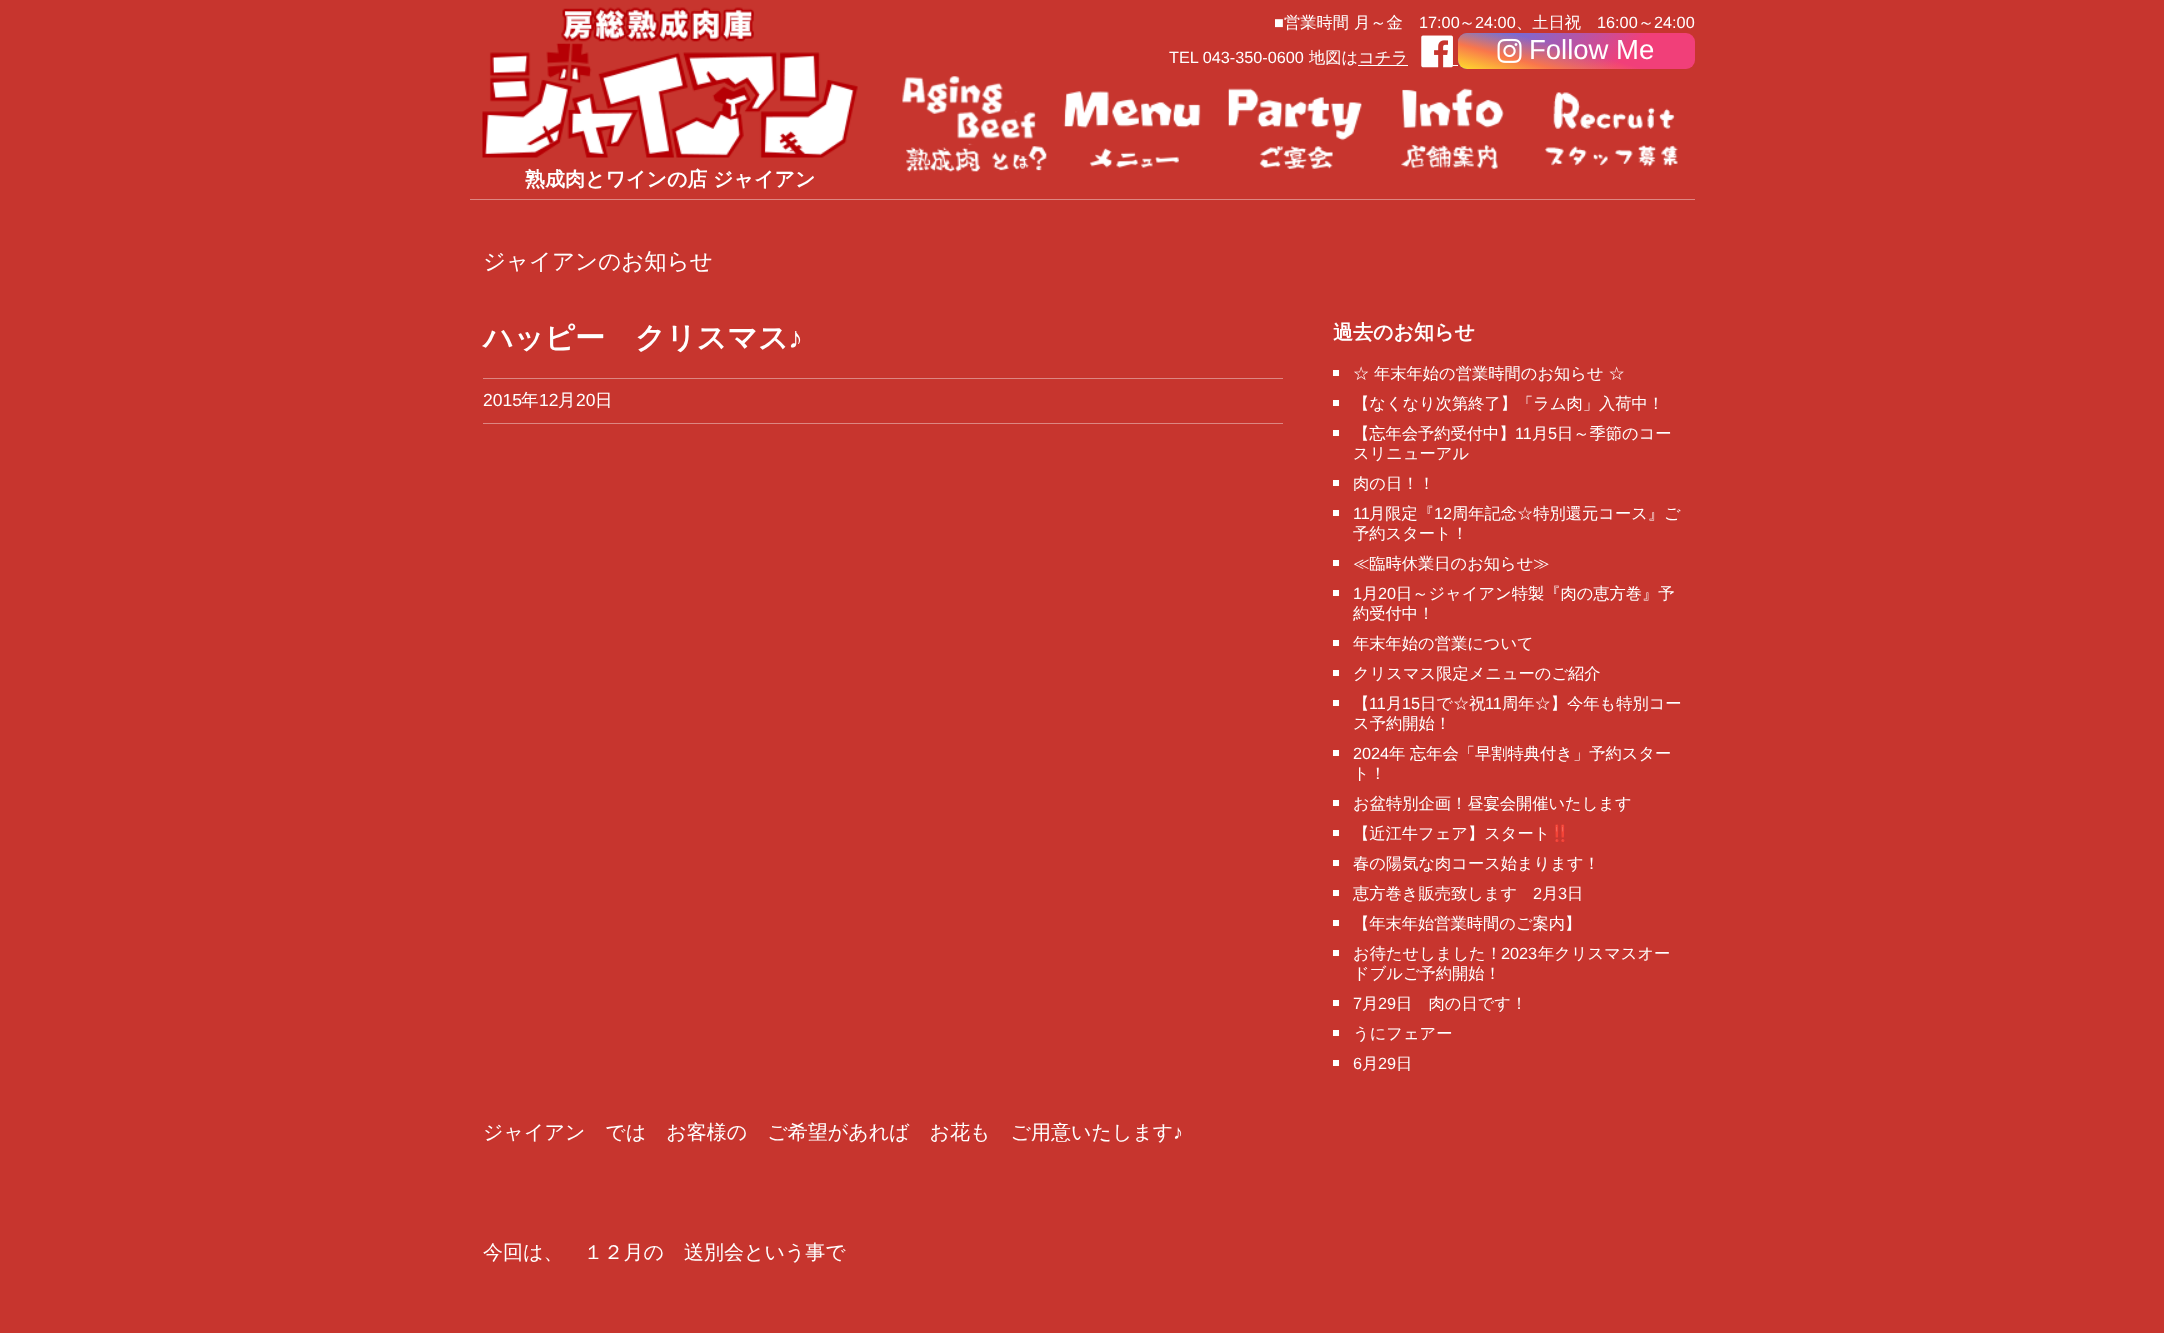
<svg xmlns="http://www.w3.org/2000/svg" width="2164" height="1333">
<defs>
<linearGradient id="g1" gradientUnits="userSpaceOnUse" x1="1508" y1="-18" x2="1645" y2="119"><stop offset="0" stop-color="#427eff"/><stop offset="0.7" stop-color="#f13f79"/></linearGradient>
<linearGradient id="g2" gradientUnits="userSpaceOnUse" x1="1564" y1="97" x2="1589" y2="4"><stop offset="0" stop-color="#ffdb2c"/><stop offset="0.25" stop-color="#f9764c"/><stop offset="0.5" stop-color="#f9764c" stop-opacity="0"/></linearGradient>
</defs>
<rect width="100%" height="100%" fill="#c7352e"/>
<rect x="470" y="199" width="1225" height="1" fill="#dd8682"/>
<text x="1274" y="28" style="font-family:Liberation Sans;font-size:16.25px;fill:#fff">■</text>
<text x="1284" y="28" style="font-family:WenQuanYi Zen Hei;font-size:16.25px;font-weight:500;fill:#fff">営業時間</text>
<text x="1354" y="28" style="font-family:WenQuanYi Zen Hei;font-size:16.25px;font-weight:500;fill:#fff">月～金</text>
<text x="1419" y="28" style="font-family:Liberation Sans;font-size:16.25px;fill:#fff">17:00</text>
<text x="1459" y="28" style="font-family:WenQuanYi Zen Hei;font-size:16.25px;font-weight:500;fill:#fff">～</text>
<text x="1475" y="28" style="font-family:Liberation Sans;font-size:16.25px;fill:#fff">24:00</text>
<text x="1516" y="28" style="font-family:WenQuanYi Zen Hei;font-size:16.25px;font-weight:500;fill:#fff">、土日祝</text>
<text x="1597" y="28" style="font-family:Liberation Sans;font-size:16.25px;fill:#fff">16:00</text>
<text x="1638" y="28" style="font-family:WenQuanYi Zen Hei;font-size:16.25px;font-weight:500;fill:#fff">～</text>
<text x="1654" y="28" style="font-family:Liberation Sans;font-size:16.25px;fill:#fff">24:00</text>
<text x="1169" y="63" style="font-family:Liberation Sans;font-size:16.25px;fill:#fff">TEL 043-350-0600</text>
<text x="1309" y="63" style="font-family:WenQuanYi Zen Hei;font-size:16.25px;font-weight:500;fill:#fff">地図はコチラ</text>
<image x="1421" y="35" width="32" height="33" href="media/1.png"/>
<rect x="1453" y="65" width="5" height="1" fill="#fff"/>
<rect x="1458" y="33" width="237" height="36" rx="9" fill="url(#g1)"/>
<rect x="1458" y="33" width="237" height="36" rx="9" fill="url(#g2)"/>
<image x="1497" y="38" width="25" height="25" href="media/2.png"/>
<text x="1529" y="59" style="font-family:Liberation Sans;font-size:27.5px;fill:#fff">Follow Me</text>
<rect x="1358" y="65" width="50" height="1" fill="#fff"/>
<image x="902" y="76" width="145" height="96" href="media/3.png"/>
<image x="1063" y="91" width="138" height="77" href="media/4.png"/>
<image x="1228" y="88" width="134" height="81" href="media/5.png"/>
<image x="1401" y="88" width="103" height="81" href="media/6.png"/>
<image x="1544" y="92" width="134" height="75" href="media/7.png"/>
<image x="482" y="7" width="376" height="151" href="media/8.png"/>
<text x="525" y="186" style="font-family:WenQuanYi Zen Hei;font-size:20px;font-weight:bold;fill:#fff">熟成肉とワインの店</text>
<text x="713" y="186" style="font-family:WenQuanYi Zen Hei;font-size:20px;font-weight:bold;fill:#fff">ジャイアン</text>
<text x="483" y="269" style="font-family:WenQuanYi Zen Hei;font-size:22.5px;font-weight:500;fill:#fff">ジャイアンのお知らせ</text>
<text x="483" y="348" style="font-family:WenQuanYi Zen Hei;font-size:30px;font-weight:bold;fill:#fff">ハッピー　クリスマス</text>
<text x="788" y="348" style="font-family:Liberation Sans;font-size:30px;font-weight:bold;fill:#fff">♪</text>
<rect x="483" y="378" width="800" height="1" fill="#dd8682"/>
<rect x="483" y="423" width="800" height="1" fill="#dd8682"/>
<text x="483" y="406" style="font-family:Liberation Sans;font-size:17.5px;fill:#fff">2015</text>
<text x="521" y="406" style="font-family:WenQuanYi Zen Hei;font-size:17.5px;font-weight:500;fill:#fff">年</text>
<text x="539" y="406" style="font-family:Liberation Sans;font-size:17.5px;fill:#fff">12</text>
<text x="558" y="406" style="font-family:WenQuanYi Zen Hei;font-size:17.5px;font-weight:500;fill:#fff">月</text>
<text x="576" y="406" style="font-family:Liberation Sans;font-size:17.5px;fill:#fff">20</text>
<text x="595" y="406" style="font-family:WenQuanYi Zen Hei;font-size:17.5px;font-weight:500;fill:#fff">日</text>
<text x="483" y="1139" style="font-family:WenQuanYi Zen Hei;font-size:20px;font-weight:500;fill:#fff">ジャイアン　では　お客様の　ご希望があれば　お花も　ご用意いたします</text>
<text x="1173" y="1139" style="font-family:Liberation Sans;font-size:20px;fill:#fff">♪</text>
<text x="483" y="1259" style="font-family:WenQuanYi Zen Hei;font-size:20px;font-weight:500;fill:#fff">今回は、　１２月の　送別会という事で</text>
<text x="1333" y="339" style="font-family:WenQuanYi Zen Hei;font-size:20px;font-weight:bold;fill:#fff">過去のお知らせ</text>
<rect x="1333" y="370" width="6" height="6" fill="#fff"/>
<text x="1353" y="379" style="font-family:WenQuanYi Zen Hei;font-size:16.25px;font-weight:500;fill:#fff">☆ 年末年始の営業時間のお知らせ ☆</text>
<rect x="1333" y="400" width="6" height="6" fill="#fff"/>
<text x="1353" y="409" style="font-family:WenQuanYi Zen Hei;font-size:16.25px;font-weight:500;fill:#fff">【なくなり次第終了】「ラム肉」入荷中！</text>
<rect x="1333" y="430" width="6" height="6" fill="#fff"/>
<text x="1353" y="439" style="font-family:WenQuanYi Zen Hei;font-size:16.25px;font-weight:500;fill:#fff">【忘年会予約受付中】</text>
<text x="1515" y="439" style="font-family:Liberation Sans;font-size:16.25px;fill:#fff">11</text>
<text x="1532" y="439" style="font-family:WenQuanYi Zen Hei;font-size:16.25px;font-weight:500;fill:#fff">月</text>
<text x="1548" y="439" style="font-family:Liberation Sans;font-size:16.25px;fill:#fff">5</text>
<text x="1557" y="439" style="font-family:WenQuanYi Zen Hei;font-size:16.25px;font-weight:500;fill:#fff">日～季節のコー</text>
<text x="1353" y="459" style="font-family:WenQuanYi Zen Hei;font-size:16.25px;font-weight:500;fill:#fff">スリニューアル</text>
<rect x="1333" y="480" width="6" height="6" fill="#fff"/>
<text x="1353" y="489" style="font-family:WenQuanYi Zen Hei;font-size:16.25px;font-weight:500;fill:#fff">肉の日！！</text>
<rect x="1333" y="510" width="6" height="6" fill="#fff"/>
<text x="1353" y="519" style="font-family:Liberation Sans;font-size:16.25px;fill:#fff">11</text>
<text x="1369" y="519" style="font-family:WenQuanYi Zen Hei;font-size:16.25px;font-weight:500;fill:#fff">月限定『</text>
<text x="1434" y="519" style="font-family:Liberation Sans;font-size:16.25px;fill:#fff">12</text>
<text x="1452" y="519" style="font-family:WenQuanYi Zen Hei;font-size:16.25px;font-weight:500;fill:#fff">周年記念☆特別還元コース』ご</text>
<text x="1353" y="539" style="font-family:WenQuanYi Zen Hei;font-size:16.25px;font-weight:500;fill:#fff">予約スタート！</text>
<rect x="1333" y="560" width="6" height="6" fill="#fff"/>
<text x="1353" y="569" style="font-family:WenQuanYi Zen Hei;font-size:16.25px;font-weight:500;fill:#fff">≪臨時休業日のお知らせ≫</text>
<rect x="1333" y="590" width="6" height="6" fill="#fff"/>
<text x="1353" y="599" style="font-family:Liberation Sans;font-size:16.25px;fill:#fff">1</text>
<text x="1362" y="599" style="font-family:WenQuanYi Zen Hei;font-size:16.25px;font-weight:500;fill:#fff">月</text>
<text x="1378" y="599" style="font-family:Liberation Sans;font-size:16.25px;fill:#fff">20</text>
<text x="1396" y="599" style="font-family:WenQuanYi Zen Hei;font-size:16.25px;font-weight:500;fill:#fff">日～ジャイアン特製『肉の恵方巻』予</text>
<text x="1353" y="619" style="font-family:WenQuanYi Zen Hei;font-size:16.25px;font-weight:500;fill:#fff">約受付中！</text>
<rect x="1333" y="640" width="6" height="6" fill="#fff"/>
<text x="1353" y="649" style="font-family:WenQuanYi Zen Hei;font-size:16.25px;font-weight:500;fill:#fff">年末年始の営業について</text>
<rect x="1333" y="670" width="6" height="6" fill="#fff"/>
<text x="1353" y="679" style="font-family:WenQuanYi Zen Hei;font-size:16.25px;font-weight:500;fill:#fff">クリスマス限定メニューのご紹介</text>
<rect x="1333" y="700" width="6" height="6" fill="#fff"/>
<text x="1353" y="709" style="font-family:WenQuanYi Zen Hei;font-size:16.25px;font-weight:500;fill:#fff">【</text>
<text x="1369" y="709" style="font-family:Liberation Sans;font-size:16.25px;fill:#fff">11</text>
<text x="1386" y="709" style="font-family:WenQuanYi Zen Hei;font-size:16.25px;font-weight:500;fill:#fff">月</text>
<text x="1402" y="709" style="font-family:Liberation Sans;font-size:16.25px;fill:#fff">15</text>
<text x="1420" y="709" style="font-family:WenQuanYi Zen Hei;font-size:16.25px;font-weight:500;fill:#fff">日で☆祝</text>
<text x="1485" y="709" style="font-family:Liberation Sans;font-size:16.25px;fill:#fff">11</text>
<text x="1502" y="709" style="font-family:WenQuanYi Zen Hei;font-size:16.25px;font-weight:500;fill:#fff">周年☆】今年も特別コー</text>
<text x="1353" y="729" style="font-family:WenQuanYi Zen Hei;font-size:16.25px;font-weight:500;fill:#fff">ス予約開始！</text>
<rect x="1333" y="750" width="6" height="6" fill="#fff"/>
<text x="1353" y="759" style="font-family:Liberation Sans;font-size:16.25px;fill:#fff">2024</text>
<text x="1389" y="759" style="font-family:WenQuanYi Zen Hei;font-size:16.25px;font-weight:500;fill:#fff">年 忘年会「早割特典付き」予約スター</text>
<text x="1353" y="779" style="font-family:WenQuanYi Zen Hei;font-size:16.25px;font-weight:500;fill:#fff">ト！</text>
<rect x="1333" y="800" width="6" height="6" fill="#fff"/>
<text x="1353" y="809" style="font-family:WenQuanYi Zen Hei;font-size:16.25px;font-weight:500;fill:#fff">お盆特別企画！昼宴会開催いたします</text>
<rect x="1333" y="830" width="6" height="6" fill="#fff"/>
<text x="1353" y="839" style="font-family:WenQuanYi Zen Hei;font-size:16.25px;font-weight:500;fill:#fff">【近江牛フェア】スタート</text>
<text x="1550" y="839" style="font-family:Noto Color Emoji;font-size:16.25px;fill:#fff">‼️</text>
<rect x="1333" y="860" width="6" height="6" fill="#fff"/>
<text x="1353" y="869" style="font-family:WenQuanYi Zen Hei;font-size:16.25px;font-weight:500;fill:#fff">春の陽気な肉コース始まります！</text>
<rect x="1333" y="890" width="6" height="6" fill="#fff"/>
<text x="1353" y="899" style="font-family:WenQuanYi Zen Hei;font-size:16.25px;font-weight:500;fill:#fff">恵方巻き販売致します</text>
<text x="1533" y="899" style="font-family:Liberation Sans;font-size:16.25px;fill:#fff">2</text>
<text x="1542" y="899" style="font-family:WenQuanYi Zen Hei;font-size:16.25px;font-weight:500;fill:#fff">月</text>
<text x="1558" y="899" style="font-family:Liberation Sans;font-size:16.25px;fill:#fff">3</text>
<text x="1567" y="899" style="font-family:WenQuanYi Zen Hei;font-size:16.25px;font-weight:500;fill:#fff">日</text>
<rect x="1333" y="920" width="6" height="6" fill="#fff"/>
<text x="1353" y="929" style="font-family:WenQuanYi Zen Hei;font-size:16.25px;font-weight:500;fill:#fff">【年末年始営業時間のご案内】</text>
<rect x="1333" y="950" width="6" height="6" fill="#fff"/>
<text x="1353" y="959" style="font-family:WenQuanYi Zen Hei;font-size:16.25px;font-weight:500;fill:#fff">お待たせしました！</text>
<text x="1501" y="959" style="font-family:Liberation Sans;font-size:16.25px;fill:#fff">2023</text>
<text x="1538" y="959" style="font-family:WenQuanYi Zen Hei;font-size:16.25px;font-weight:500;fill:#fff">年クリスマスオー</text>
<text x="1353" y="979" style="font-family:WenQuanYi Zen Hei;font-size:16.25px;font-weight:500;fill:#fff">ドブルご予約開始！</text>
<rect x="1333" y="1000" width="6" height="6" fill="#fff"/>
<text x="1353" y="1009" style="font-family:Liberation Sans;font-size:16.25px;fill:#fff">7</text>
<text x="1362" y="1009" style="font-family:WenQuanYi Zen Hei;font-size:16.25px;font-weight:500;fill:#fff">月</text>
<text x="1378" y="1009" style="font-family:Liberation Sans;font-size:16.25px;fill:#fff">29</text>
<text x="1396" y="1009" style="font-family:WenQuanYi Zen Hei;font-size:16.25px;font-weight:500;fill:#fff">日　肉の日です！</text>
<rect x="1333" y="1030" width="6" height="6" fill="#fff"/>
<text x="1353" y="1039" style="font-family:WenQuanYi Zen Hei;font-size:16.25px;font-weight:500;fill:#fff">うにフェアー</text>
<rect x="1333" y="1060" width="6" height="6" fill="#fff"/>
<text x="1353" y="1069" style="font-family:Liberation Sans;font-size:16.25px;fill:#fff">6</text>
<text x="1362" y="1069" style="font-family:WenQuanYi Zen Hei;font-size:16.25px;font-weight:500;fill:#fff">月</text>
<text x="1378" y="1069" style="font-family:Liberation Sans;font-size:16.25px;fill:#fff">29</text>
<text x="1396" y="1069" style="font-family:WenQuanYi Zen Hei;font-size:16.25px;font-weight:500;fill:#fff">日</text>
</svg>
